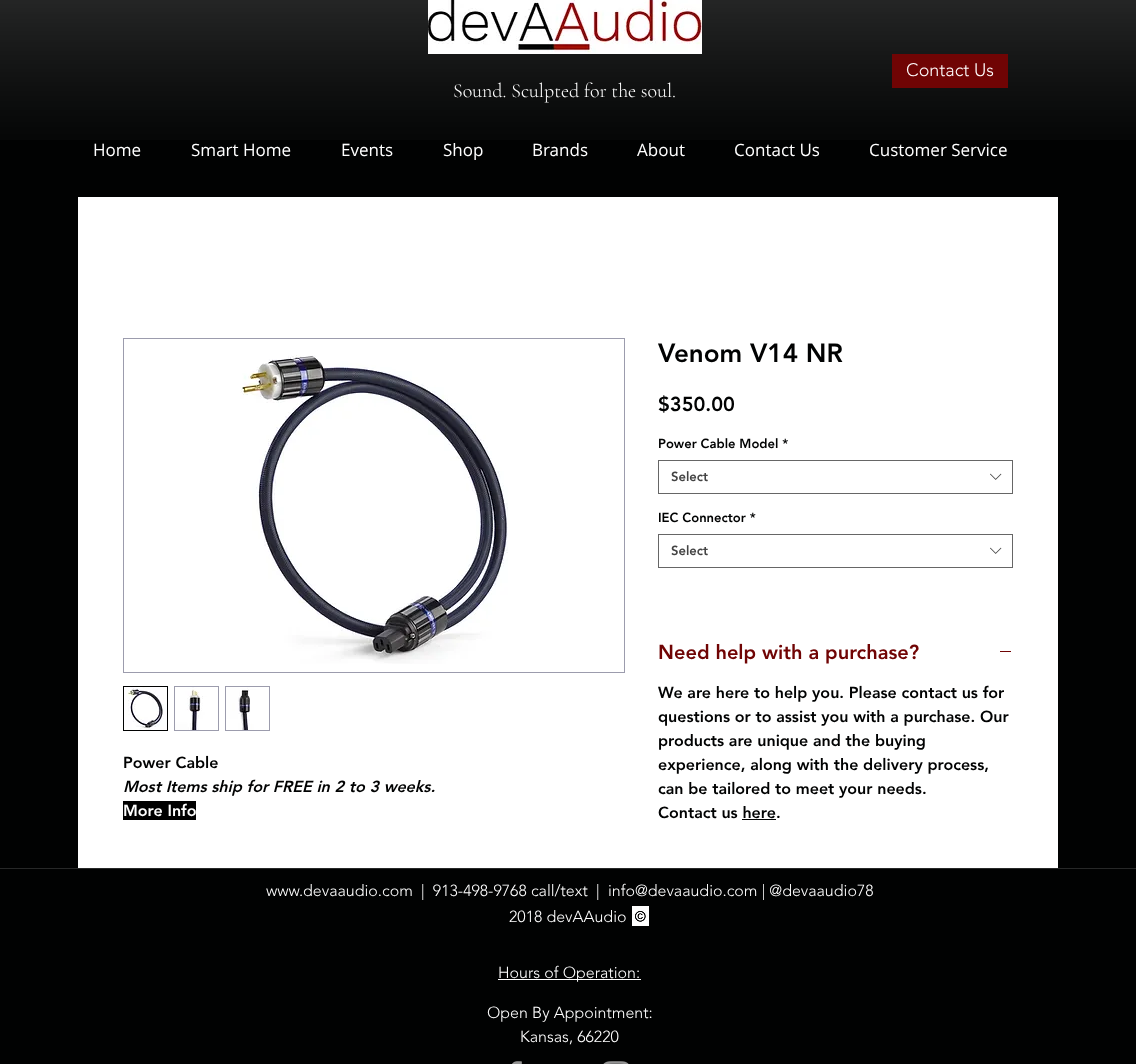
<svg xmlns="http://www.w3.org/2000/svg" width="1136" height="1064">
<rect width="100%" height="100%" fill="#010202"/>
<image x="0" y="0" width="1136" height="140" href="media/1.png"/>
<image x="428" y="0" width="274" height="54" href="media/2.png"/>
<rect x="892" y="54" width="116" height="34" fill="#700404"/>
<text x="906" y="76" style="font-family:'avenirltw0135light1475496';font-size:18px;font-weight:300;fill:#fff">Contact Us</text>
<text x="453" y="97" style="font-family:Cormorant Garamond;font-size:20px;font-weight:300;fill:#fff">Sound. Sculpted for the soul.</text>
<text x="93" y="156" style="font-family:Open Sans;font-size:17px;fill:#fff">Home</text>
<text x="191" y="156" style="font-family:Open Sans;font-size:17px;fill:#fff">Smart Home</text>
<text x="341" y="156" style="font-family:Open Sans;font-size:17px;fill:#fff">Events</text>
<text x="443" y="156" style="font-family:Open Sans;font-size:17px;fill:#fff">Shop</text>
<text x="532" y="156" style="font-family:Open Sans;font-size:17px;fill:#fff">Brands</text>
<text x="637" y="156" style="font-family:Open Sans;font-size:17px;fill:#fff">About</text>
<text x="734" y="156" style="font-family:Open Sans;font-size:17px;fill:#fff">Contact Us</text>
<text x="869" y="156" style="font-family:Open Sans;font-size:17px;fill:#fff">Customer Service</text>
<rect x="78" y="197" width="980" height="671" fill="#fff"/>
<rect x="123.5" y="338.5" width="501" height="334" fill="none" stroke="#9c9cad"/>
<image x="240" y="355" width="268" height="309" href="media/3.png"/>
<rect x="123.5" y="686.5" width="44" height="44" fill="none" stroke="#010202"/>
<image x="124" y="687" width="43" height="43" href="media/4.png"/>
<rect x="174" y="686" width="45" height="45" fill="#9c9cad"/>
<image x="175" y="687" width="43" height="43" href="media/5.png"/>
<rect x="225" y="686" width="45" height="45" fill="#9c9cad"/>
<image x="226" y="687" width="43" height="43" href="media/6.png"/>
<text x="123" y="768" style="font-family:'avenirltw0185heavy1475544';font-size:16px;font-weight:900;fill:#010202">Power Cable</text>
<text x="123" y="792" style="font-family:'avenirltw0185heavy1475544';font-size:16px;font-weight:900;font-style:italic;fill:#010202">Most Items ship for FREE in 2 to 3 weeks.</text>
<rect x="123" y="801" width="73" height="19" fill="#000"/>
<text x="123" y="816" style="font-family:'avenirltw0185heavy1475544';font-size:16px;font-weight:900;fill:#fff">More Info</text>
<text x="658" y="362" style="font-family:'avenirltw0185heavy1475544';font-size:26px;font-weight:900;fill:#010202">Venom V14 NR</text>
<text x="658" y="411" style="font-family:'avenirltw0185heavy1475544';font-size:20px;font-weight:900;fill:#010202">$350.00</text>
<text x="658" y="448" style="font-family:'avenirltw0185heavy1475544';font-size:13px;font-weight:900;fill:#010202">Power Cable Model *</text>
<rect x="658.5" y="460.5" width="354" height="33" fill="none" stroke="#666"/>
<text x="671" y="481" style="font-family:'avenirltw0185heavy1475544';font-size:13px;font-weight:900;fill:#444">Select</text>
<image x="990" y="473" width="12" height="7" href="media/7.png"/>
<text x="658" y="522" style="font-family:'avenirltw0185heavy1475544';font-size:13px;font-weight:900;fill:#010202">IEC Connector *</text>
<rect x="658.5" y="534.5" width="354" height="33" fill="none" stroke="#666"/>
<text x="671" y="555" style="font-family:'avenirltw0185heavy1475544';font-size:13px;font-weight:900;fill:#444">Select</text>
<image x="990" y="547" width="12" height="7" href="media/7.png"/>
<text x="658" y="659" style="font-family:'avenirltw0185heavy1475544';font-size:20px;font-weight:900;fill:#700404">Need help with a purchase?</text>
<rect x="1000" y="651" width="11" height="1" fill="#700404"/>
<text x="658" y="698" style="font-family:'avenirltw0185heavy1475544';font-size:16px;font-weight:900;fill:#010202">We are here to help you. Please contact us for</text>
<text x="658" y="722" style="font-family:'avenirltw0185heavy1475544';font-size:16px;font-weight:900;fill:#010202">questions or to assist you with a purchase. Our</text>
<text x="658" y="746" style="font-family:'avenirltw0185heavy1475544';font-size:16px;font-weight:900;fill:#010202">products are unique and the buying</text>
<text x="658" y="770" style="font-family:'avenirltw0185heavy1475544';font-size:16px;font-weight:900;fill:#010202">experience, along with the delivery process,</text>
<text x="658" y="794" style="font-family:'avenirltw0185heavy1475544';font-size:16px;font-weight:900;fill:#010202">can be tailored to meet your needs.</text>
<text x="658" y="818" style="font-family:'avenirltw0185heavy1475544';font-size:16px;font-weight:900;fill:#010202">Contact us here.</text>
<rect x="742" y="819" width="34" height="1" fill="#010202"/>
<rect y="868" width="1136" height="1" fill="#272828"/>
<text x="266" y="896" style="font-family:'avenirltw0135light1475496';font-size:16px;font-weight:300;fill:#fff">www.devaaudio.com</text>
<text x="421" y="896" style="font-family:'avenirltw0135light1475496';font-size:16px;font-weight:300;fill:#fff" xml:space="preserve">|  913-498-9768 call/text  |</text>
<text x="608" y="896" style="font-family:'avenirltw0135light1475496';font-size:16px;font-weight:300;fill:#fff">info@devaaudio.com | @devaaudio78</text>
<text x="509" y="922" style="font-family:'avenirltw0135light1475496';font-size:16px;font-weight:300;fill:#fff">2018 devAAudio</text>
<image x="632" y="906" width="17" height="20" href="media/8.png"/>
<rect x="498" y="979" width="143" height="1" fill="#fff"/>
<text x="498" y="978" style="font-family:'avenirltw0135light1475496';font-size:16px;font-weight:300;fill:#fff">Hours of Operation:</text>
<text x="487" y="1018" style="font-family:'avenirltw0135light1475496';font-size:16px;font-weight:300;fill:#fff">Open By Appointment:</text>
<text x="520" y="1042" style="font-family:'avenirltw0135light1475496';font-size:16px;font-weight:300;fill:#fff">Kansas, 66220</text>
<image x="512" y="1061" width="10" height="3" href="media/9.png"/>
<image x="603" y="1061" width="26" height="3" href="media/10.png"/>
</svg>
